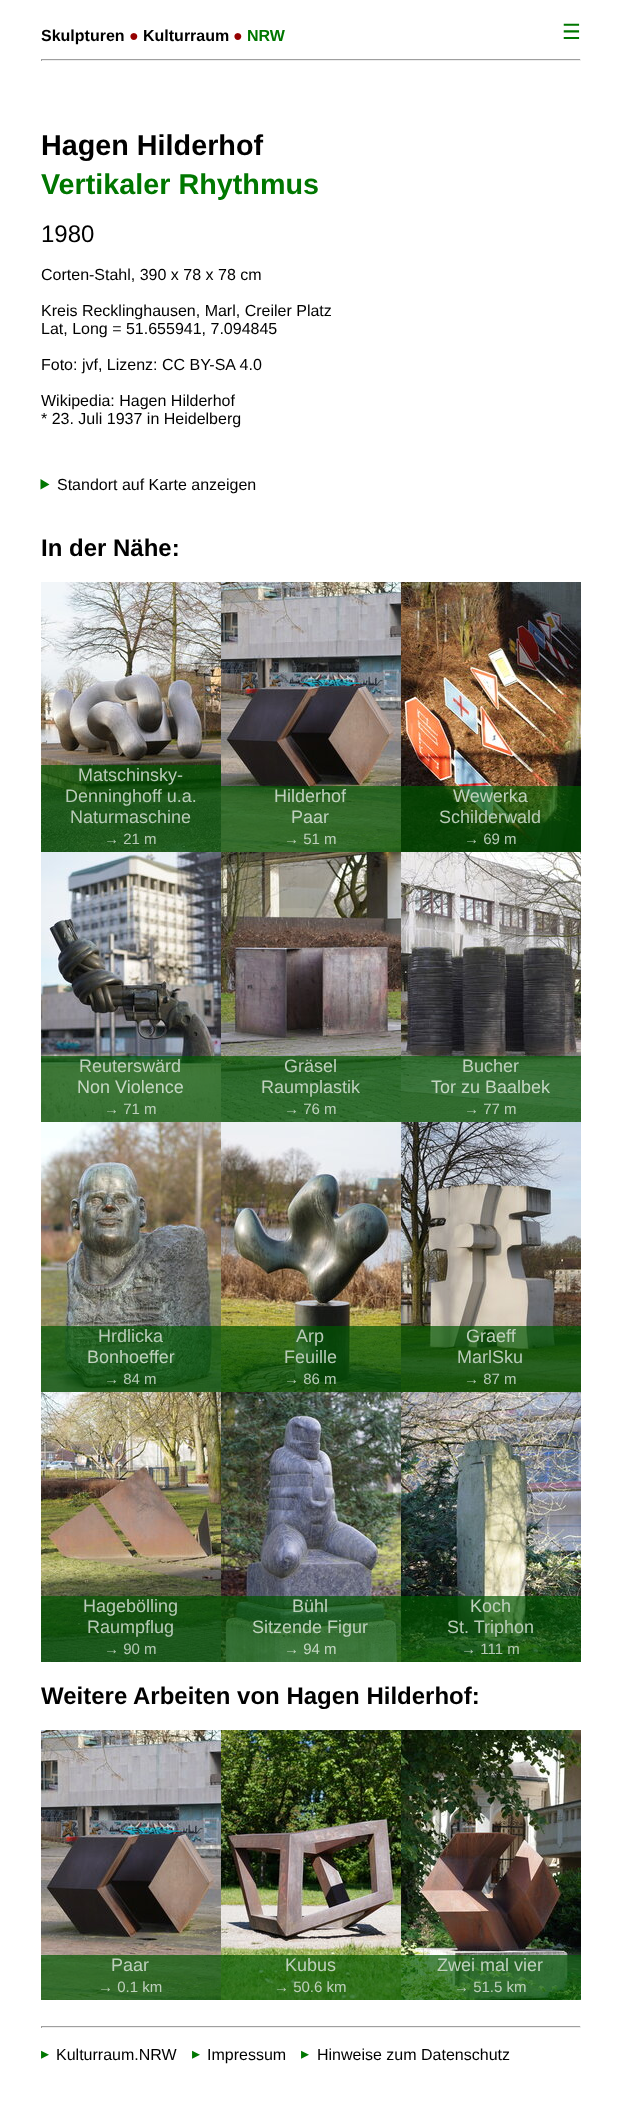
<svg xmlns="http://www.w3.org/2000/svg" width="621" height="2127">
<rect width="100%" height="100%" fill="#fff"/>
<text x="41" y="41" style="font-family:Liberation Sans;font-size:16px;font-weight:bold;fill:#000">Skulpturen</text>
<text x="129" y="41" style="font-family:Liberation Sans;font-size:16px;font-weight:bold;fill:#950000">●</text>
<text x="143" y="41" style="font-family:Liberation Sans;font-size:16px;font-weight:bold;fill:#000">Kulturraum</text>
<text x="233" y="41" style="font-family:Liberation Sans;font-size:16px;font-weight:bold;fill:#950000">●</text>
<text x="247" y="41" style="font-family:Liberation Sans;font-size:16px;font-weight:bold;fill:#070">NRW</text>
<text x="562" y="39" style="font-family:DejaVu Sans;font-size:21px;fill:#070">☰</text>
<rect x="41" y="59" width="540" height="1" fill="#9f9f9f"/>
<rect x="580" y="59" width="1" height="2" fill="#eee"/>
<rect x="41" y="60" width="540" height="1" fill="#eee"/>
<rect x="41" y="59" width="1" height="2" fill="#9f9f9f"/>
<text x="41" y="155" style="font-family:Liberation Sans;font-size:28.75px;font-weight:bold;fill:#000">Hagen Hilderhof</text>
<text x="41" y="194" style="font-family:Liberation Sans;font-size:28.75px;font-weight:bold;fill:#070">Vertikaler Rhythmus</text>
<text x="41" y="242" style="font-family:Liberation Sans;font-size:24px;fill:#000">1980</text>
<text x="41" y="280" style="font-family:Liberation Sans;font-size:16px;fill:#000">Corten-Stahl, 390 x 78 x 78 cm</text>
<text x="41" y="316" style="font-family:Liberation Sans;font-size:16px;fill:#000">Kreis Recklinghausen, Marl, Creiler Platz</text>
<text x="41" y="334" style="font-family:Liberation Sans;font-size:16px;fill:#000">Lat, Long = 51.655941, 7.094845</text>
<text x="41" y="370" style="font-family:Liberation Sans;font-size:16px;fill:#000">Foto: jvf, Lizenz: CC BY-SA 4.0</text>
<text x="41" y="406" style="font-family:Liberation Sans;font-size:16px;fill:#000">Wikipedia: Hagen Hilderhof</text>
<text x="41" y="424" style="font-family:Liberation Sans;font-size:16px;fill:#000">* 23. Juli 1937 in Heidelberg</text>
<path d="M40.5 479l9 5.5l-9 5z" fill="#070"/>
<text x="57" y="490" style="font-family:Liberation Sans;font-size:16px;fill:#000">Standort auf Karte anzeigen</text>
<text x="41" y="556" style="font-family:Liberation Sans;font-size:24px;font-weight:bold;fill:#000">In der Nähe:</text>
<image x="41" y="582" width="180" height="270" href="media/1.png"/>
<rect x="41" y="765" width="180" height="87" fill="#005500b3"/>
<text x="78" y="781" style="font-family:Liberation Sans;font-size:18px;fill:#b8cab7">Matschinsky-</text>
<text x="65" y="802" style="font-family:Liberation Sans;font-size:18px;fill:#b8cab7">Denninghoff u.a.</text>
<text x="70" y="823" style="font-family:Liberation Sans;font-size:18px;fill:#b8cab7">Naturmaschine</text>
<text x="104" y="844" style="font-family:Liberation Sans;font-size:15px;fill:#b8cab7">→ 21 m</text>
<image x="221" y="582" width="180" height="270" href="media/2.png"/>
<rect x="221" y="786" width="180" height="66" fill="#005500b3"/>
<text x="274" y="802" style="font-family:Liberation Sans;font-size:18px;fill:#bfd0bd">Hilderhof</text>
<text x="291" y="823" style="font-family:Liberation Sans;font-size:18px;fill:#bfd0bd">Paar</text>
<text x="284" y="844" style="font-family:Liberation Sans;font-size:15px;fill:#bfd0bd">→ 51 m</text>
<image x="401" y="582" width="180" height="270" href="media/3.png"/>
<rect x="401" y="786" width="180" height="66" fill="#005500b3"/>
<text x="453" y="802" style="font-family:Liberation Sans;font-size:18px;fill:#bfd0bd">Wewerka</text>
<text x="439" y="823" style="font-family:Liberation Sans;font-size:18px;fill:#b8cab7">Schilderwald</text>
<text x="464" y="844" style="font-family:Liberation Sans;font-size:15px;fill:#b8cab7">→ 69 m</text>
<image x="41" y="852" width="180" height="270" href="media/4.png"/>
<rect x="41" y="1056" width="180" height="66" fill="#005500b3"/>
<text x="79" y="1072" style="font-family:Liberation Sans;font-size:18px;fill:#bfd0bd">Reuterswärd</text>
<text x="77" y="1093" style="font-family:Liberation Sans;font-size:18px;fill:#c5d6c3">Non Violence</text>
<text x="104" y="1114" style="font-family:Liberation Sans;font-size:15px;fill:#bfd0bd">→ 71 m</text>
<image x="221" y="852" width="180" height="270" href="media/5.png"/>
<rect x="221" y="1056" width="180" height="66" fill="#005500b3"/>
<text x="284" y="1072" style="font-family:Liberation Sans;font-size:18px;fill:#bfd0bd">Gräsel</text>
<text x="261" y="1093" style="font-family:Liberation Sans;font-size:18px;fill:#bfd0bd">Raumplastik</text>
<text x="284" y="1114" style="font-family:Liberation Sans;font-size:15px;fill:#bfd0bd">→ 76 m</text>
<image x="401" y="852" width="180" height="270" href="media/6.png"/>
<rect x="401" y="1056" width="180" height="66" fill="#005500b3"/>
<text x="462" y="1072" style="font-family:Liberation Sans;font-size:18px;fill:#bfd0bd">Bucher</text>
<text x="431" y="1093" style="font-family:Liberation Sans;font-size:18px;fill:#c5d6c3">Tor zu Baalbek</text>
<text x="464" y="1114" style="font-family:Liberation Sans;font-size:15px;fill:#bfd0bd">→ 77 m</text>
<image x="41" y="1122" width="180" height="270" href="media/7.png"/>
<rect x="41" y="1326" width="180" height="66" fill="#005500b3"/>
<text x="98" y="1342" style="font-family:Liberation Sans;font-size:18px;fill:#b8cab7">Hrdlicka</text>
<text x="87" y="1363" style="font-family:Liberation Sans;font-size:18px;fill:#bfd0bd">Bonhoeffer</text>
<text x="104" y="1384" style="font-family:Liberation Sans;font-size:15px;fill:#b8cab7">→ 84 m</text>
<image x="221" y="1122" width="180" height="270" href="media/8.png"/>
<rect x="221" y="1326" width="180" height="66" fill="#005500b3"/>
<text x="296" y="1342" style="font-family:Liberation Sans;font-size:18px;fill:#b8cab7">Arp</text>
<text x="284" y="1363" style="font-family:Liberation Sans;font-size:18px;fill:#b8cab7">Feuille</text>
<text x="284" y="1384" style="font-family:Liberation Sans;font-size:15px;fill:#b8cab7">→ 86 m</text>
<image x="401" y="1122" width="180" height="270" href="media/9.png"/>
<rect x="401" y="1326" width="180" height="66" fill="#005500b3"/>
<text x="466" y="1342" style="font-family:Liberation Sans;font-size:18px;fill:#bfd0bd">Graeff</text>
<text x="457" y="1363" style="font-family:Liberation Sans;font-size:18px;fill:#b8cab7">MarlSku</text>
<text x="464" y="1384" style="font-family:Liberation Sans;font-size:15px;fill:#b8cab7">→ 87 m</text>
<image x="41" y="1392" width="180" height="270" href="media/10.png"/>
<rect x="41" y="1596" width="180" height="66" fill="#005500b3"/>
<text x="83" y="1612" style="font-family:Liberation Sans;font-size:18px;fill:#b8cab7">Hagebölling</text>
<text x="87" y="1633" style="font-family:Liberation Sans;font-size:18px;fill:#b8cab7">Raumpflug</text>
<text x="104" y="1654" style="font-family:Liberation Sans;font-size:15px;fill:#b8cab7">→ 90 m</text>
<image x="221" y="1392" width="180" height="270" href="media/11.png"/>
<rect x="221" y="1596" width="180" height="66" fill="#005500b3"/>
<text x="292" y="1612" style="font-family:Liberation Sans;font-size:18px;fill:#bfd0bd">Bühl</text>
<text x="252" y="1633" style="font-family:Liberation Sans;font-size:18px;fill:#bfd0bd">Sitzende Figur</text>
<text x="284" y="1654" style="font-family:Liberation Sans;font-size:15px;fill:#c5d6c3">→ 94 m</text>
<image x="401" y="1392" width="180" height="270" href="media/12.png"/>
<rect x="401" y="1596" width="180" height="66" fill="#005500b3"/>
<text x="470" y="1612" style="font-family:Liberation Sans;font-size:18px;fill:#bfd0bd">Koch</text>
<text x="447" y="1633" style="font-family:Liberation Sans;font-size:18px;fill:#b8cab7">St. Triphon</text>
<text x="461" y="1654" style="font-family:Liberation Sans;font-size:15px;fill:#b8cab7">→ 111 m</text>
<text x="41" y="1704" style="font-family:Liberation Sans;font-size:24px;font-weight:bold;fill:#000">Weitere Arbeiten von Hagen Hilderhof:</text>
<image x="41" y="1730" width="180" height="270" href="media/2.png"/>
<rect x="41" y="1955" width="180" height="45" fill="#005500b3"/>
<text x="111" y="1971" style="font-family:Liberation Sans;font-size:18px;fill:#bfd0bd">Paar</text>
<text x="98" y="1992" style="font-family:Liberation Sans;font-size:15px;fill:#bfd0bd">→ 0.1 km</text>
<image x="221" y="1730" width="180" height="270" href="media/13.png"/>
<rect x="221" y="1955" width="180" height="45" fill="#005500b3"/>
<text x="285" y="1971" style="font-family:Liberation Sans;font-size:18px;fill:#bfd0bd">Kubus</text>
<text x="274" y="1992" style="font-family:Liberation Sans;font-size:15px;fill:#bfd0bd">→ 50.6 km</text>
<image x="401" y="1730" width="180" height="270" href="media/14.png"/>
<rect x="401" y="1955" width="180" height="45" fill="#005500b3"/>
<text x="437" y="1971" style="font-family:Liberation Sans;font-size:18px;fill:#bfd0bd">Zwei mal vier</text>
<text x="454" y="1992" style="font-family:Liberation Sans;font-size:15px;fill:#bfd0bd">→ 51.5 km</text>
<rect x="41" y="2026" width="540" height="1" fill="#9f9f9f"/>
<rect x="580" y="2026" width="1" height="2" fill="#eee"/>
<rect x="41" y="2027" width="540" height="1" fill="#eee"/>
<rect x="41" y="2026" width="1" height="2" fill="#9f9f9f"/>
<text x="41" y="2059" style="font-family:DejaVu Sans;font-size:16px;fill:#070">▸</text>
<text x="56" y="2060" style="font-family:Liberation Sans;font-size:16px;fill:#000">Kulturraum.NRW</text>
<text x="192" y="2059" style="font-family:DejaVu Sans;font-size:16px;fill:#070">▸</text>
<text x="207" y="2060" style="font-family:Liberation Sans;font-size:16px;fill:#000">Impressum</text>
<text x="301" y="2059" style="font-family:DejaVu Sans;font-size:16px;fill:#070">▸</text>
<text x="317" y="2060" style="font-family:Liberation Sans;font-size:16px;fill:#000">Hinweise zum Datenschutz</text>
</svg>
